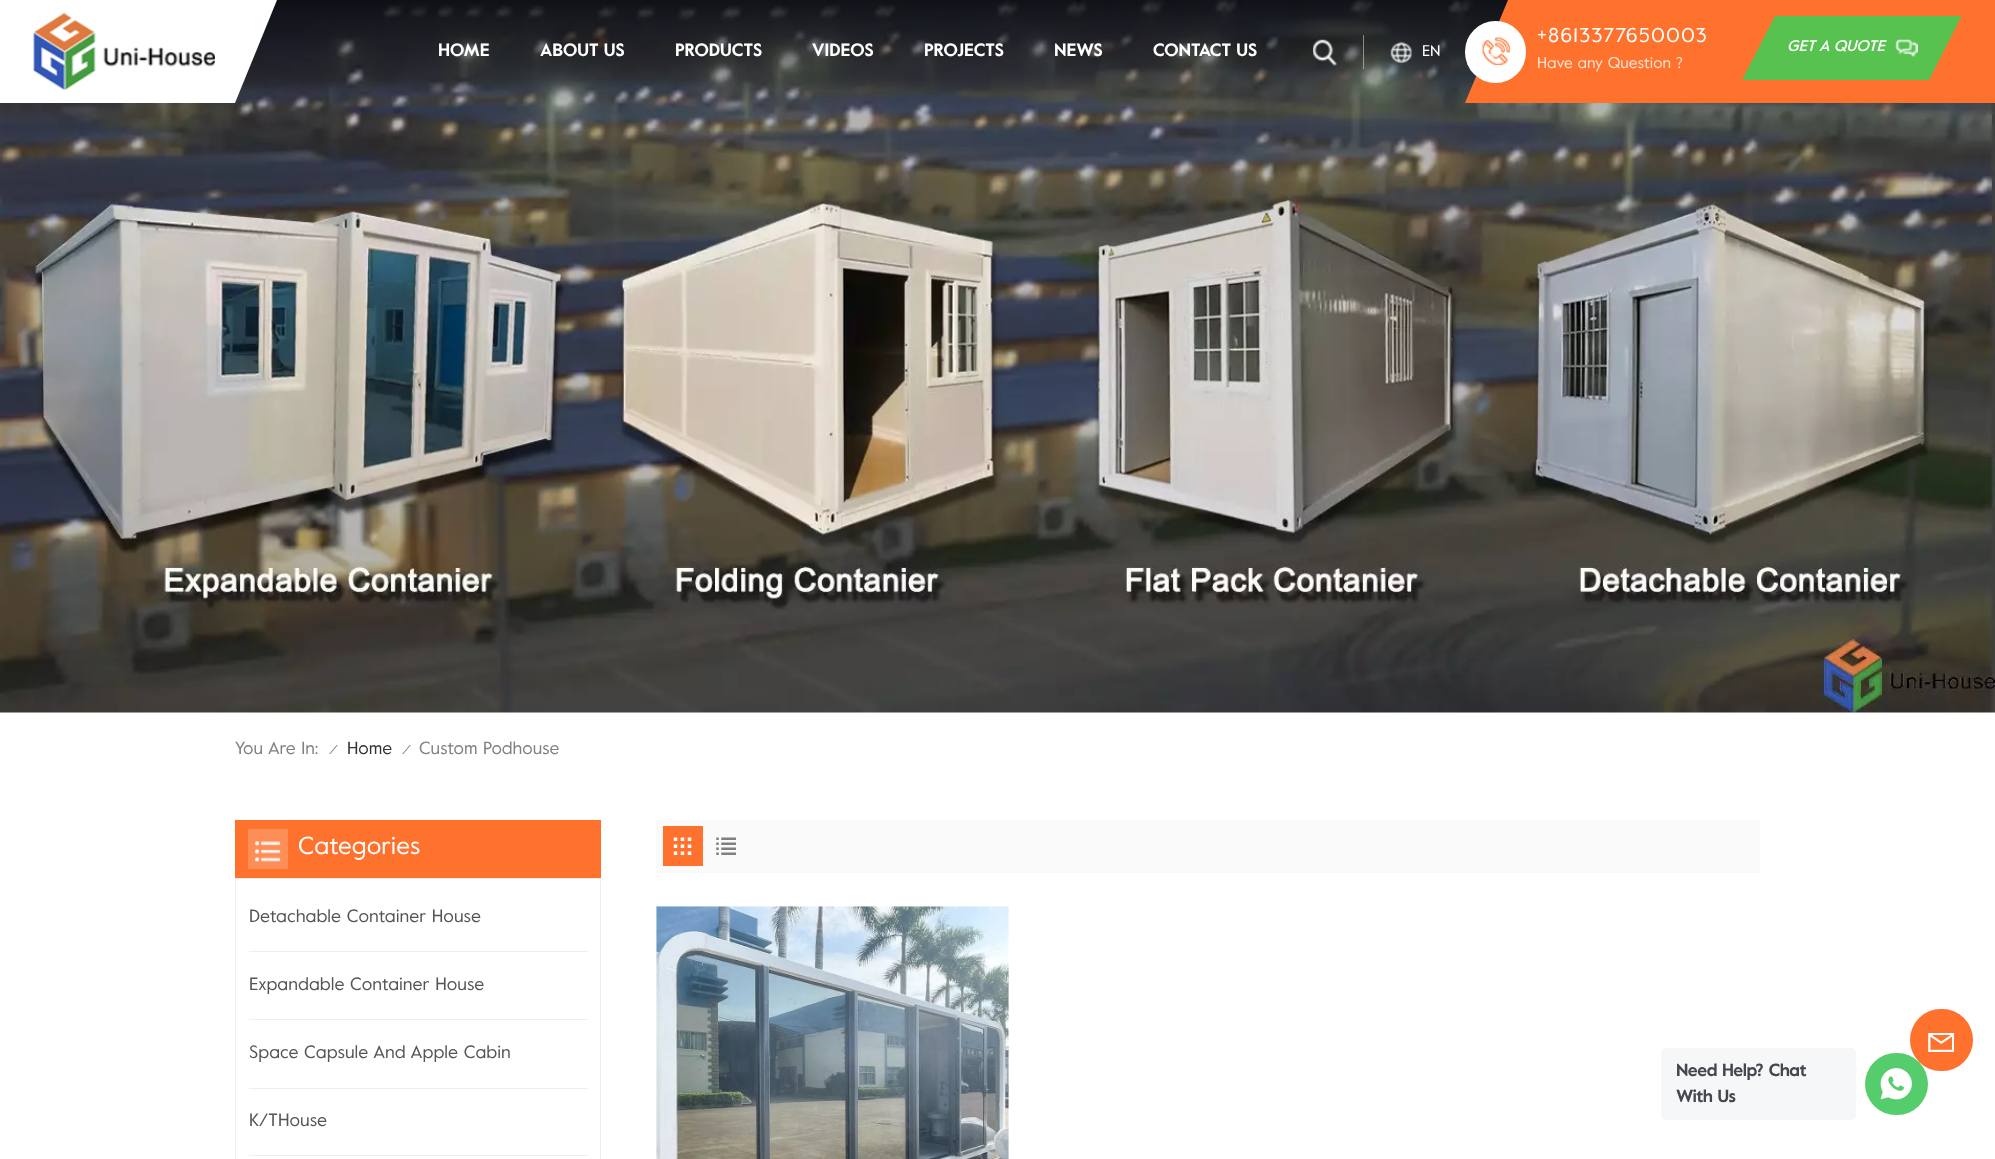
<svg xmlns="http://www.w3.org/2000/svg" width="1995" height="1159">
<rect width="100%" height="100%" fill="#fff"/>
<image x="0" y="0" width="1995" height="713" href="media/6.png"/>
<path d="M0 0v103h235l42-103z" fill="#fff"/>
<image x="33" y="12" width="182" height="79" href="media/1.png"/>
<text x="438" y="56" style="font-family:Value;font-size:17.75px;font-weight:bold;fill:#fff">HOME</text>
<text x="540" y="56" style="font-family:Value;font-size:17.75px;font-weight:bold;fill:#fff">ABOUT US</text>
<text x="675" y="56" style="font-family:Value;font-size:17.75px;font-weight:bold;fill:#fff">PRODUCTS</text>
<text x="812" y="56" style="font-family:Value;font-size:17.75px;font-weight:bold;fill:#fff">VIDEOS</text>
<text x="924" y="56" style="font-family:Value;font-size:17.75px;font-weight:bold;fill:#fff">PROJECTS</text>
<text x="1054" y="56" style="font-family:Value;font-size:17.75px;font-weight:bold;fill:#fff">NEWS</text>
<text x="1153" y="56" style="font-family:Value;font-size:17.75px;font-weight:bold;fill:#fff">CONTACT US</text>
<image x="1313" y="39" width="24" height="27" href="media/2.png"/>
<rect x="1363" y="35" width="1" height="34" fill="#ffffff73"/>
<image x="1390" y="41" width="22" height="22" href="media/3.png"/>
<text x="1422" y="56" style="font-family:Value;font-size:15.5px;fill:#fff">EN</text>
<path d="M1508 0l-43 103h530v-103z" fill="#fe722e"/>
<rect x="1465" y="21" width="61" height="62" rx="30.5" fill="#fff"/>
<image x="1482" y="37" width="28" height="28" href="media/4.png"/>
<text x="1537" y="42" style="font-family:Value;font-size:20px;letter-spacing:1.1px;fill:#fff">+8613377650003</text>
<text x="1537" y="68" style="font-family:Value;font-size:15.5px;fill:#ffe3d5">Have any Question ?</text>
<path d="M1775 16h186v1l-32 63h-186v-2z" fill="#58c251"/>
<text x="1787" y="51" style="font-family:Value;font-size:15.5px;font-weight:500;font-style:italic;fill:#fff">GET A QUOTE</text>
<image x="1895" y="39" width="23" height="18" href="media/5.png"/>
<text x="235" y="754" style="font-family:Value;font-size:17.5px;fill:#808080">You Are In:</text>
<text x="329" y="754" style="font-family:Value;font-size:13px;font-style:italic;fill:#808080">/</text>
<text x="347" y="754" style="font-family:Value;font-size:17.5px;fill:#333">Home</text>
<text x="402" y="754" style="font-family:Value;font-size:13px;font-style:italic;fill:#808080">/</text>
<text x="419" y="754" style="font-family:Value;font-size:17.5px;fill:#808080">Custom Podhouse</text>
<rect x="235" y="820" width="366" height="58" fill="#fe722e"/>
<rect x="248" y="829" width="40" height="40" fill="#fe8e58"/>
<image x="254" y="841" width="27" height="21" href="media/7.png"/>
<text x="298" y="854" style="font-family:Value;font-size:24.5px;fill:#fff">Categories</text>
<rect x="235.5" y="878.5" width="365" height="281" fill="none" stroke="#efeeed"/>
<rect x="249" y="951" width="339" height="1" fill="#eee"/>
<text x="249" y="922" style="font-family:Value;font-size:17.75px;fill:#555">Detachable Container House</text>
<rect x="249" y="1019" width="339" height="1" fill="#eee"/>
<text x="249" y="990" style="font-family:Value;font-size:17.75px;fill:#555">Expandable Container House</text>
<rect x="249" y="1088" width="339" height="1" fill="#eee"/>
<text x="249" y="1058" style="font-family:Value;font-size:17.75px;fill:#555">Space Capsule And Apple Cabin</text>
<rect x="249" y="1155" width="339" height="1" fill="#eee"/>
<text x="249" y="1126" style="font-family:Value;font-size:17.75px;fill:#555">K/THouse</text>
<rect x="656" y="820" width="1104" height="53" fill="#fafafa"/>
<rect x="663" y="826" width="40" height="40" fill="#fe722e"/>
<image x="673" y="837" width="19" height="18" href="media/8.png"/>
<image x="716" y="837" width="20" height="18" href="media/9.png"/>
<image x="656" y="906" width="353" height="253" href="media/10.png"/>
<rect x="1910" y="1009" width="63" height="62" rx="31" fill="#fe722e"/>
<rect x="1910" y="1009" width="63" height="62" rx="31" fill="#fe722e1a"/>
<rect x="1910" y="1009" width="63" height="62" rx="31" fill="#fe722e1a"/>
<rect x="1910" y="1009" width="63" height="62" rx="31" fill="#fe722e1a"/>
<image x="1928" y="1033" width="26" height="19" href="media/11.png"/>
<rect x="1865" y="1053" width="63" height="62" rx="31" fill="#55cd6c"/>
<rect x="1661" y="1048" width="195" height="72" rx="5" fill="#f5f7f9"/>
<text x="1676" y="1076" style="font-family:Value;font-size:17.5px;font-weight:bold;letter-spacing:-0.5px;fill:#43474e">Need Help? Chat</text>
<text x="1676" y="1102" style="font-family:Value;font-size:17.5px;font-weight:bold;letter-spacing:-0.5px;fill:#43474e">With Us</text>
<image x="1880" y="1068" width="32" height="32" href="media/12.png"/>
</svg>
